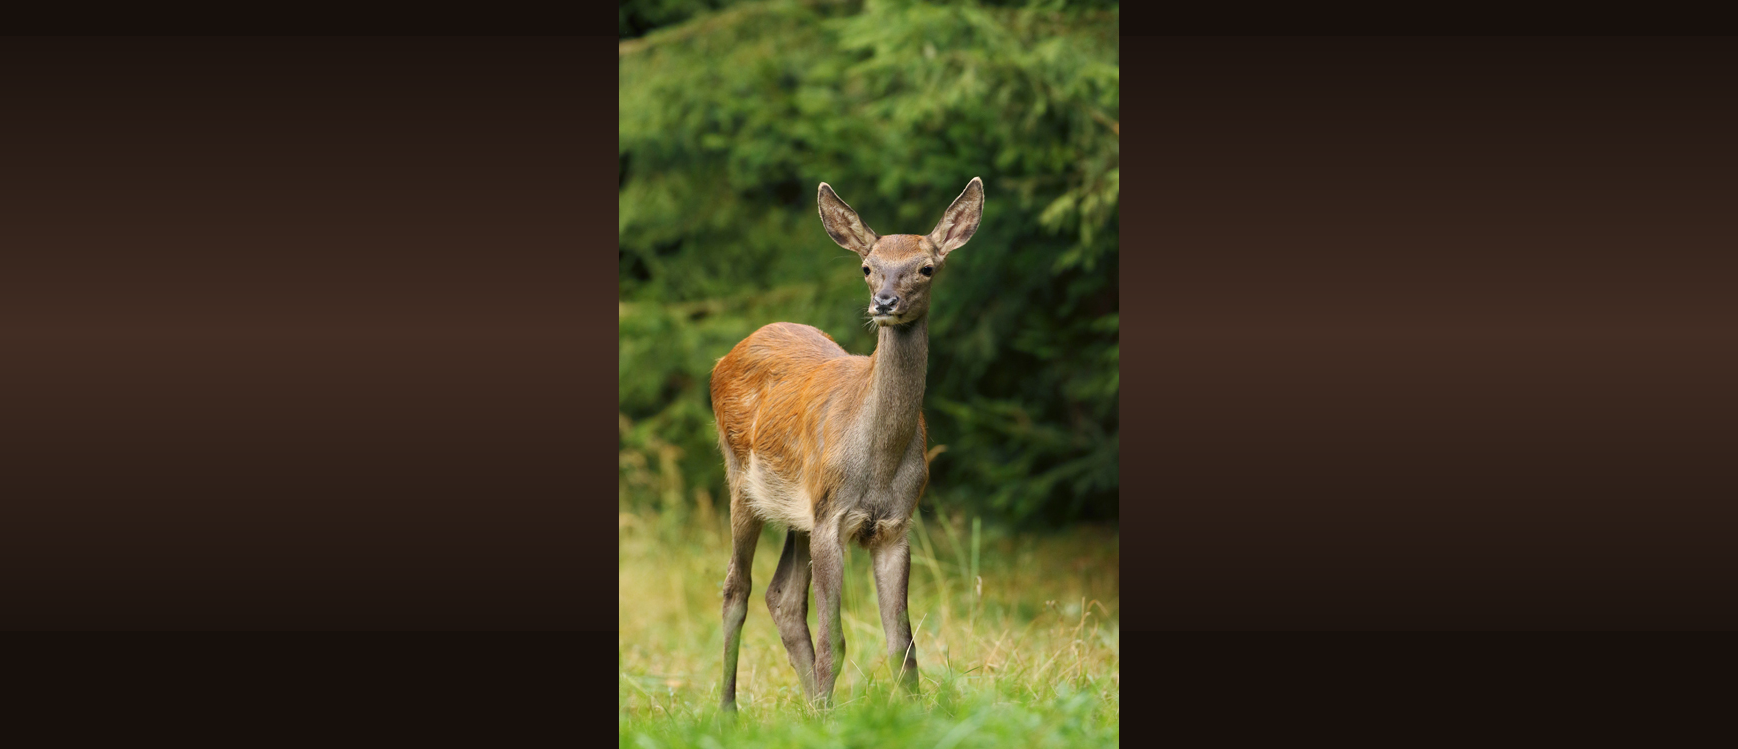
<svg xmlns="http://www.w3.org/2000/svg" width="1738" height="749">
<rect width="100%" height="100%" fill="#17100c"/>
<image x="0" y="36" width="1738" height="595" href="media/1.png"/>
<image x="619" y="0" width="500" height="749" href="media/2.png"/>
</svg>
